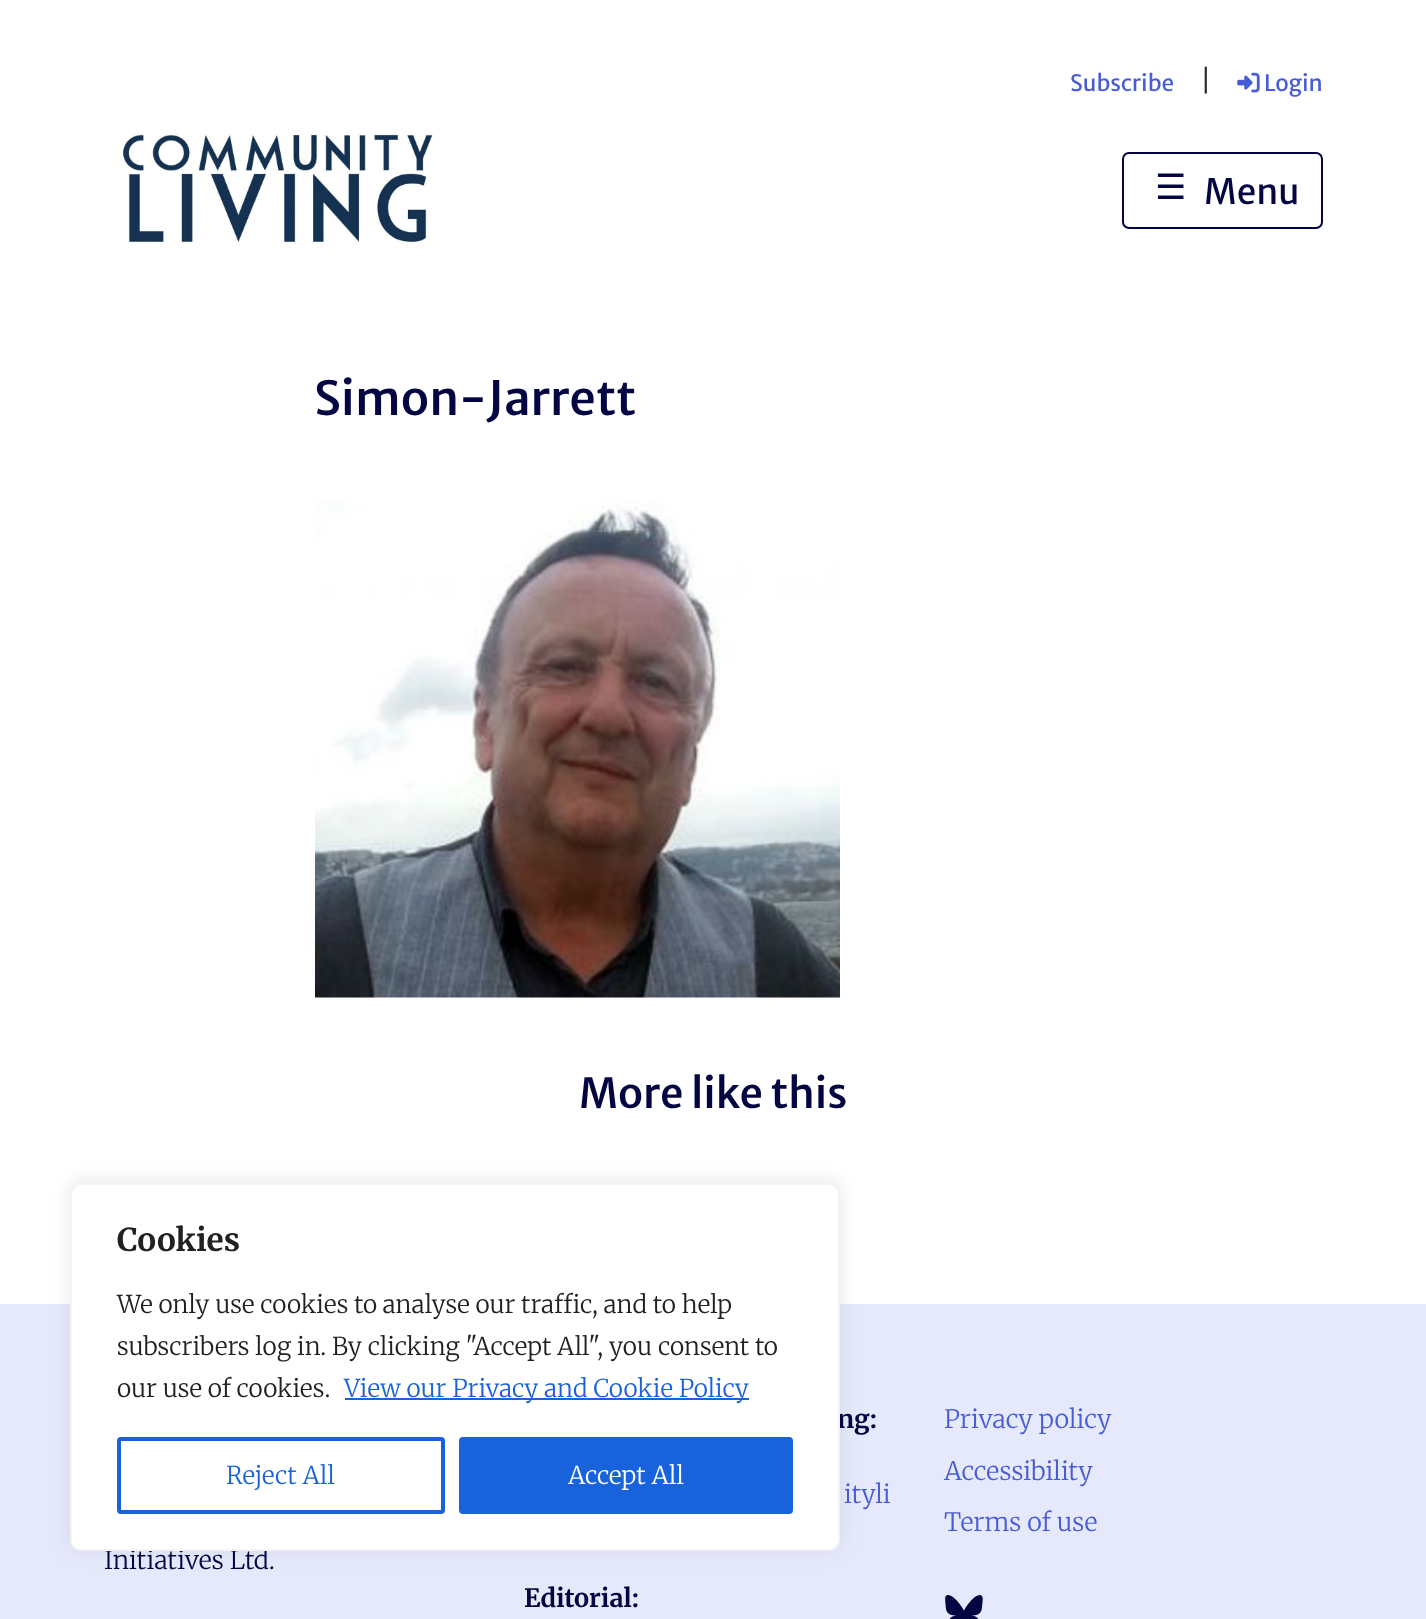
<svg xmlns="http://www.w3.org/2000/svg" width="1426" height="1619">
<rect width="100%" height="100%" fill="#fff"/>
<text x="1070" y="91" style="font-family:Merriweather Sans;font-size:22.5px;fill:#485cd5">Subscribe</text>
<text x="1200" y="91" style="font-family:Merriweather Sans;font-size:28px;font-weight:300;fill:#212529">|</text>
<image x="1237" y="72" width="23" height="21" href="media/1.png"/>
<text x="1264" y="91" style="font-family:Merriweather Sans;font-size:22.5px;fill:#485cd5">Login</text>
<image x="122" y="133" width="312" height="111" href="media/2.png"/>
<rect x="1123" y="153" width="199" height="75" rx="6" fill="none" stroke="#030642" stroke-width="2"/>
<text x="1155" y="199" style="font-family:DejaVu Sans;font-size:35px;fill:#030642">☰</text>
<text x="1204" y="204" style="font-family:Merriweather Sans;font-size:35px;fill:#030642">Menu</text>
<text x="314" y="415" style="font-family:Merriweather Sans;font-size:47px;font-weight:500;fill:#030642">Simon-Jarrett</text>
<image x="315" y="501" width="525" height="497" href="media/3.png"/>
<text x="579" y="1108" style="font-family:Merriweather Sans;font-size:41.5px;font-weight:500;fill:#030642">More like this</text>
<rect y="1304" width="1426" height="315" fill="#e6e9fc"/>
<rect x="70" y="1181" width="770" height="368" rx="11" fill="#acabab4d" filter="blur(9px)"/>
<text x="104" y="1569" style="font-family:Merriweather;font-size:25.25px;font-weight:300;fill:#030642">Initiatives Ltd.</text>
<text x="837" y="1428" style="font-family:Merriweather;font-size:25.25px;font-weight:bold;fill:#030642">ng:</text>
<rect x="71" y="1184" width="768" height="366" rx="10" fill="#fff" stroke="#f4f4f4" stroke-width="2"/>
<text x="117" y="1251" style="font-family:Merriweather;font-size:31.5px;font-weight:bold;fill:#212121">Cookies</text>
<text x="117" y="1313" style="font-family:Merriweather;font-size:24.5px;font-weight:300;fill:#212121">We only use cookies to analyse our traffic, and to help</text>
<text x="117" y="1355" style="font-family:Merriweather;font-size:24.5px;font-weight:300;fill:#212121">subscribers log in. By clicking "Accept All", you consent to</text>
<text x="117" y="1397" style="font-family:Merriweather;font-size:24.5px;font-weight:300;fill:#212121">our use of cookies.</text>
<rect x="345" y="1398" width="404" height="2" fill="#1863dc"/>
<text x="344" y="1397" style="font-family:Merriweather;font-size:24.5px;font-weight:300;fill:#1863dc">View our Privacy and Cookie Policy</text>
<rect x="119" y="1439" width="324" height="73" rx="2" fill="none" stroke="#1863dc" stroke-width="4"/>
<text x="226" y="1484" style="font-family:Merriweather;font-size:24.5px;font-weight:300;fill:#1863dc">Reject All</text>
<rect x="461" y="1439" width="330" height="73" rx="2" fill="#1863dc" stroke="#1863dc" stroke-width="4"/>
<text x="568" y="1484" style="font-family:Merriweather;font-size:24.5px;font-weight:300;fill:#fff">Accept All</text>
<text x="844" y="1503" style="font-family:Merriweather;font-size:25.25px;font-weight:300;fill:#485cd5">ityli</text>
<text x="524" y="1607" style="font-family:Merriweather;font-size:25.25px;font-weight:bold;fill:#030642">Editorial:</text>
<text x="944" y="1428" style="font-family:Merriweather;font-size:25.25px;font-weight:300;fill:#485cd5">Privacy policy</text>
<text x="944" y="1480" style="font-family:Merriweather;font-size:25.25px;font-weight:300;fill:#485cd5">Accessibility</text>
<text x="944" y="1531" style="font-family:Merriweather;font-size:25.25px;font-weight:300;fill:#485cd5">Terms of use</text>
<image x="945" y="1595" width="38" height="24" href="media/4.png"/>
</svg>
